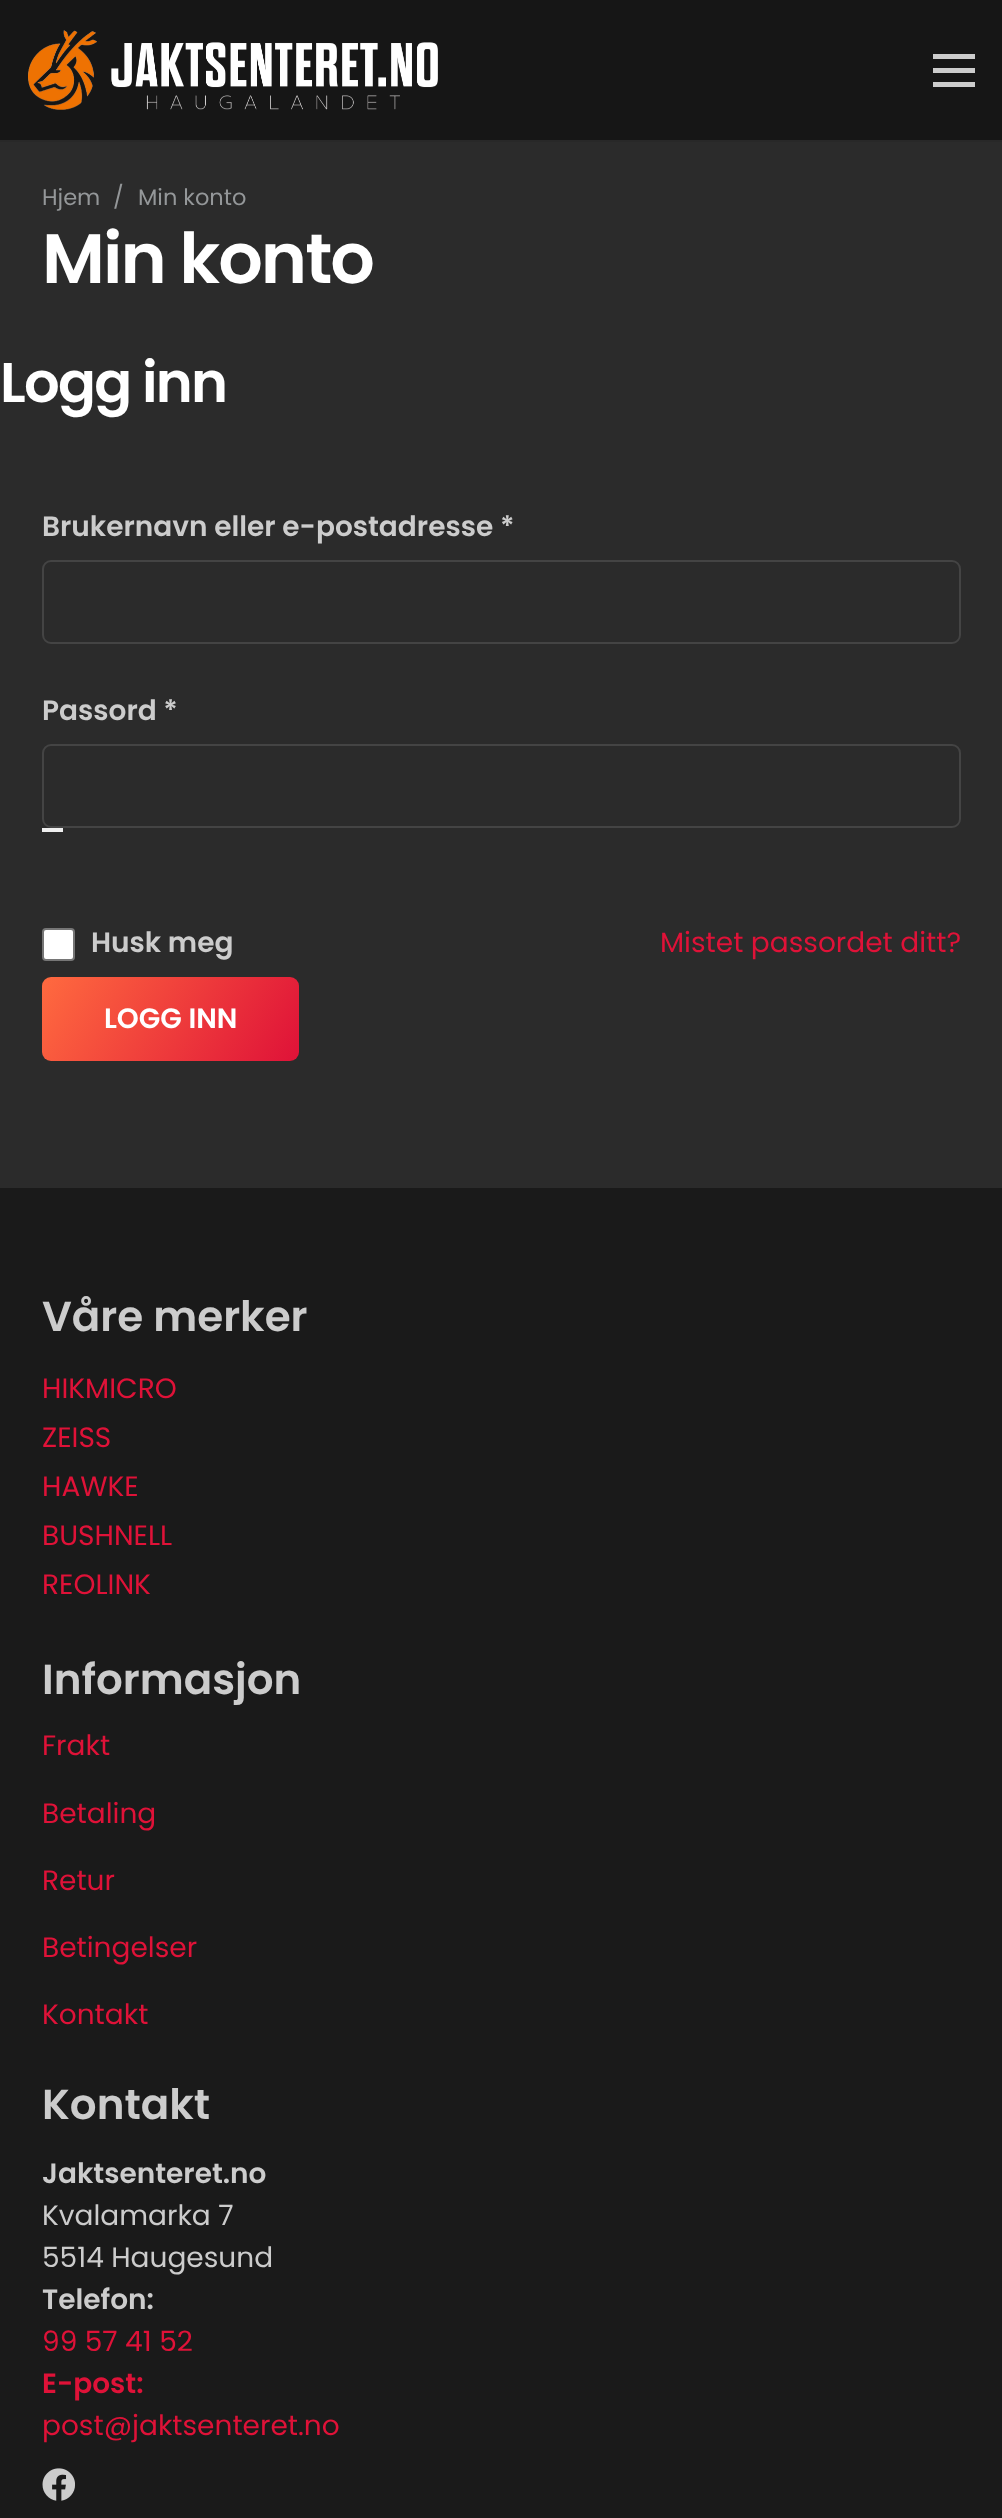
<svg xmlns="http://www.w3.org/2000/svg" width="1002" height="2518">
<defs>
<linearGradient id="g1" gradientUnits="userSpaceOnUse" x1="285" y1="1085" x2="56" y2="952"><stop offset="0" stop-color="#df1238"/><stop offset="1" stop-color="#ff6a3f"/></linearGradient>
</defs>
<rect width="100%" height="100%" fill="#2b2b2b"/>
<path d="M0 140v2h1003v-140v138z" fill="#282828"/>
<rect width="1002" height="140" fill="#161616"/>
<image x="28" y="30" width="410" height="80" href="media/1.png"/>
<rect x="933" y="68" width="42" height="5" fill="#ccc"/>
<rect x="933" y="54" width="42" height="5" fill="#ccc"/>
<rect x="933" y="82" width="42" height="5" fill="#ccc"/>
<text x="42" y="205" style="font-family:Poppins;font-size:22.5px;fill:#949799">Hjem</text>
<text x="113" y="205" style="font-family:Poppins;font-size:22.5px;fill:#949799">/</text>
<text x="138" y="205" style="font-family:Poppins;font-size:22.5px;fill:#949799">Min konto</text>
<text x="42" y="283" style="font-family:Poppins;font-size:70px;font-weight:600;letter-spacing:-2px;fill:#fff">Min konto</text>
<text x="0" y="402" style="font-family:Poppins;font-size:56px;font-weight:600;letter-spacing:-1.75px;fill:#fff">Logg inn</text>
<text x="42" y="536" style="font-family:Poppins;font-size:28px;font-weight:600;fill:#ccc">Brukernavn eller e-postadresse *</text>
<rect x="43" y="561" width="917" height="82" rx="8" fill="none" stroke="#444" stroke-width="2"/>
<text x="42" y="720" style="font-family:Poppins;font-size:28px;font-weight:600;fill:#ccc">Passord *</text>
<rect x="43" y="745" width="917" height="82" rx="8" fill="none" stroke="#444" stroke-width="2"/>
<rect x="42" y="828" width="21" height="4" fill="#efefef"/>
<rect x="43" y="929" width="31" height="31" rx="3" fill="#fff" stroke="#767676" stroke-width="2"/>
<text x="91" y="952" style="font-family:Poppins;font-size:28px;font-weight:600;fill:#ccc">Husk meg</text>
<rect x="42" y="977" width="257" height="84" rx="9" fill="url(#g1)"/>
<text x="104" y="1028" style="font-family:Poppins;font-size:28px;font-weight:600;fill:#fff">LOGG INN</text>
<text x="660" y="952" style="font-family:Poppins;font-size:28px;fill:#df1238">Mistet passordet ditt?</text>
<rect y="1188" width="1002" height="1330" fill="#1a1a1a"/>
<text x="42" y="1331" style="font-family:Poppins;font-size:42px;font-weight:600;fill:#ccc">Våre merker</text>
<text x="42" y="1398" style="font-family:Poppins;font-size:28px;fill:#df1238">HIKMICRO</text>
<text x="42" y="1447" style="font-family:Poppins;font-size:28px;fill:#df1238">ZEISS</text>
<text x="42" y="1496" style="font-family:Poppins;font-size:28px;fill:#df1238">HAWKE</text>
<text x="42" y="1545" style="font-family:Poppins;font-size:28px;fill:#df1238">BUSHNELL</text>
<text x="42" y="1594" style="font-family:Poppins;font-size:28px;fill:#df1238">REOLINK</text>
<text x="42" y="1694" style="font-family:Poppins;font-size:42px;font-weight:600;fill:#ccc">Informasjon</text>
<text x="42" y="1755" style="font-family:Poppins;font-size:28px;fill:#df1238">Frakt</text>
<text x="42" y="1823" style="font-family:Poppins;font-size:28px;fill:#df1238">Betaling</text>
<text x="42" y="1890" style="font-family:Poppins;font-size:28px;fill:#df1238">Retur</text>
<text x="42" y="1957" style="font-family:Poppins;font-size:28px;fill:#df1238">Betingelser</text>
<text x="42" y="2024" style="font-family:Poppins;font-size:28px;fill:#df1238">Kontakt</text>
<text x="42" y="2119" style="font-family:Poppins;font-size:42px;font-weight:600;fill:#ccc">Kontakt</text>
<text x="42" y="2183" style="font-family:Poppins;font-size:28px;font-weight:600;fill:#ccc">Jaktsenteret.no</text>
<text x="42" y="2225" style="font-family:Poppins;font-size:28px;fill:#ccc">Kvalamarka 7</text>
<text x="42" y="2267" style="font-family:Poppins;font-size:28px;fill:#ccc">5514 Haugesund</text>
<text x="42" y="2309" style="font-family:Poppins;font-size:28px;font-weight:600;fill:#ccc">Telefon:</text>
<text x="42" y="2351" style="font-family:Poppins;font-size:28px;fill:#df1238">99 57 41 52</text>
<text x="42" y="2393" style="font-family:Poppins;font-size:28px;font-weight:600;fill:#df1238">E-post:</text>
<text x="42" y="2435" style="font-family:Poppins;font-size:28px;fill:#df1238">post@jaktsenteret.no</text>
<image x="42" y="2468" width="33" height="33" href="media/2.png"/>
</svg>
